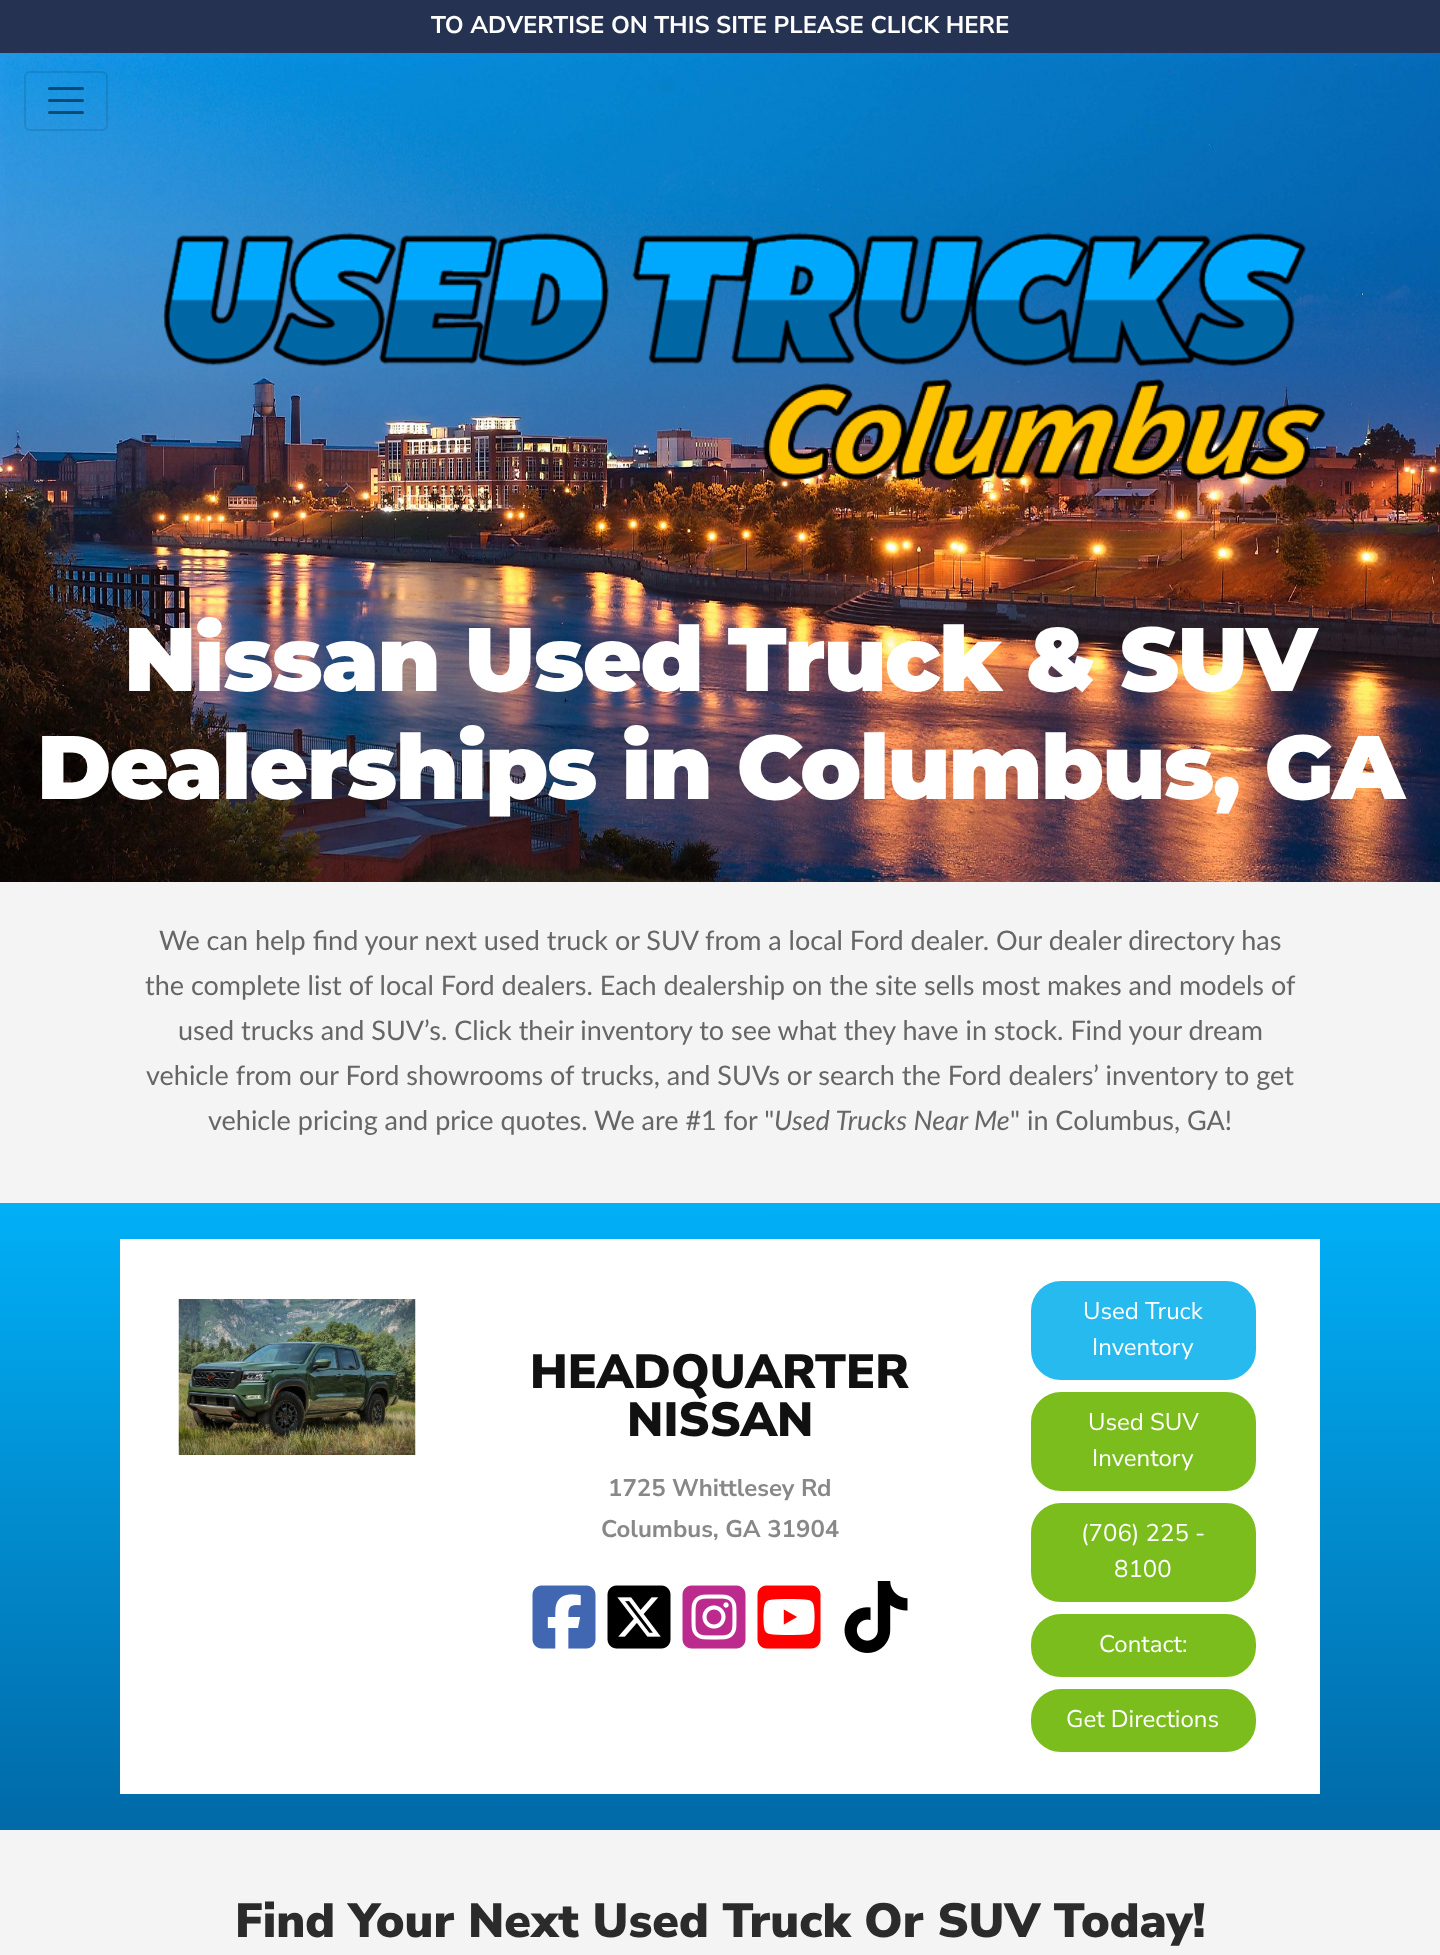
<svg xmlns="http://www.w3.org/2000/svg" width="1440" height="1955">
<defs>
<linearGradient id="g1" gradientUnits="userSpaceOnUse" x1="720" y1="1202" x2="720" y2="1846"><stop offset="0" stop-color="#01b0f7"/><stop offset="1" stop-color="#0167a5"/></linearGradient>
</defs>
<rect width="100%" height="100%" fill="#fff"/>
<rect width="1440" height="53" fill="#263251"/>
<text x="431" y="33" style="font-family:Nunito Sans;font-size:24px;font-weight:bold;fill:#fff">TO ADVERTISE ON THIS SITE PLEASE CLICK HERE</text>
<image x="0" y="53" width="1440" height="829" href="media/1.png"/>
<rect x="25" y="72" width="82" height="58" rx="5" fill="none" stroke="#0000001a" stroke-width="2"/>
<path d="M49.5 88.5h33m-33 12h33m-33 12h33" fill="none" stroke="#00000080" stroke-width="3" stroke-linecap="round"/>
<image x="162" y="232" width="1164" height="249" href="media/2.png"/>
<text x="124" y="691" style="font-family:Montserrat;font-size:90px;font-weight:900;letter-spacing:-1.5px;fill:#fff">Nissan Used Truck &amp; SUV</text>
<text x="37" y="799" style="font-family:Montserrat;font-size:90px;font-weight:900;letter-spacing:-1.5px;fill:#fff">Dealerships in Columbus, GA</text>
<rect y="882" width="1440" height="321" fill="#f4f4f4"/>
<text x="159" y="950" style="font-family:Lato;font-size:27px;fill:#666">We can help find your next used truck or SUV from a local Ford dealer. Our dealer directory has</text>
<text x="145" y="995" style="font-family:Lato;font-size:27px;fill:#666">the complete list of local Ford dealers. Each dealership on the site sells most makes and models of</text>
<text x="178" y="1040" style="font-family:Lato;font-size:27px;fill:#666">used trucks and SUV’s. Click their inventory to see what they have in stock. Find your dream</text>
<text x="146" y="1085" style="font-family:Lato;font-size:27px;fill:#666">vehicle from our Ford showrooms of trucks, and SUVs or search the Ford dealers’ inventory to get</text>
<text x="208" y="1130" style="font-family:Lato;font-size:27px;fill:#666">vehicle pricing and price quotes.</text>
<text x="594" y="1130" style="font-family:Lato;font-size:27px;fill:#666">We are #1 for "</text>
<text x="774" y="1130" style="font-family:Lato;font-size:27px;font-style:italic;fill:#666">Used Trucks Near Me</text>
<text x="1010" y="1130" style="font-family:Lato;font-size:27px;fill:#666">" in Columbus, GA!</text>
<rect y="1203" width="1440" height="627" fill="url(#g1)"/>
<rect x="120" y="1239" width="1200" height="555" fill="#fff"/>
<image x="178" y="1299" width="238" height="156" href="media/3.png"/>
<text x="530" y="1388" style="font-family:Nunito Sans;font-size:48px;font-weight:900;fill:#111">HEADQUARTER</text>
<text x="627" y="1436" style="font-family:Nunito Sans;font-size:48px;font-weight:900;fill:#111">NISSAN</text>
<text x="608" y="1496" style="font-family:Nunito Sans;font-size:24px;font-weight:bold;fill:#888">1725 Whittlesey Rd</text>
<text x="601" y="1537" style="font-family:Nunito Sans;font-size:24px;font-weight:bold;fill:#888">Columbus, GA 31904</text>
<image x="532" y="1585" width="64" height="64" href="media/4.png"/>
<image x="607" y="1585" width="64" height="64" href="media/5.png"/>
<image x="682" y="1585" width="64" height="64" href="media/6.png"/>
<image x="757" y="1585" width="64" height="64" href="media/7.png"/>
<image x="844" y="1581" width="64" height="72" href="media/8.png"/>
<rect x="1032" y="1282" width="223" height="97" rx="29" fill="#26baee" stroke="#26baee" stroke-width="2"/>
<text x="1083" y="1319" style="font-family:Nunito Sans;font-size:24px;fill:#fff">Used Truck</text>
<text x="1092" y="1355" style="font-family:Nunito Sans;font-size:24px;fill:#fff">Inventory</text>
<rect x="1032" y="1393" width="223" height="97" rx="29" fill="#7cbd1e" stroke="#7cbd1e" stroke-width="2"/>
<text x="1088" y="1430" style="font-family:Nunito Sans;font-size:24px;fill:#fff">Used SUV</text>
<text x="1092" y="1466" style="font-family:Nunito Sans;font-size:24px;fill:#fff">Inventory</text>
<rect x="1032" y="1504" width="223" height="97" rx="29" fill="#7cbd1e" stroke="#7cbd1e" stroke-width="2"/>
<text x="1081" y="1541" style="font-family:Nunito Sans;font-size:24px;fill:#fff">(706) 225 -</text>
<text x="1114" y="1577" style="font-family:Nunito Sans;font-size:24px;fill:#fff">8100</text>
<rect x="1032" y="1615" width="223" height="61" rx="29" fill="#7cbd1e" stroke="#7cbd1e" stroke-width="2"/>
<text x="1099" y="1652" style="font-family:Nunito Sans;font-size:24px;fill:#fff">Contact:</text>
<rect x="1032" y="1690" width="223" height="61" rx="29" fill="#7cbd1e" stroke="#7cbd1e" stroke-width="2"/>
<text x="1066" y="1727" style="font-family:Nunito Sans;font-size:24px;fill:#fff">Get Directions</text>
<rect y="1830" width="1440" height="125" fill="#f4f4f4"/>
<text x="235" y="1937" style="font-family:Nunito Sans;font-size:48px;font-weight:900;fill:#2b2b2b">Find Your Next Used Truck Or SUV Today!</text>
</svg>
